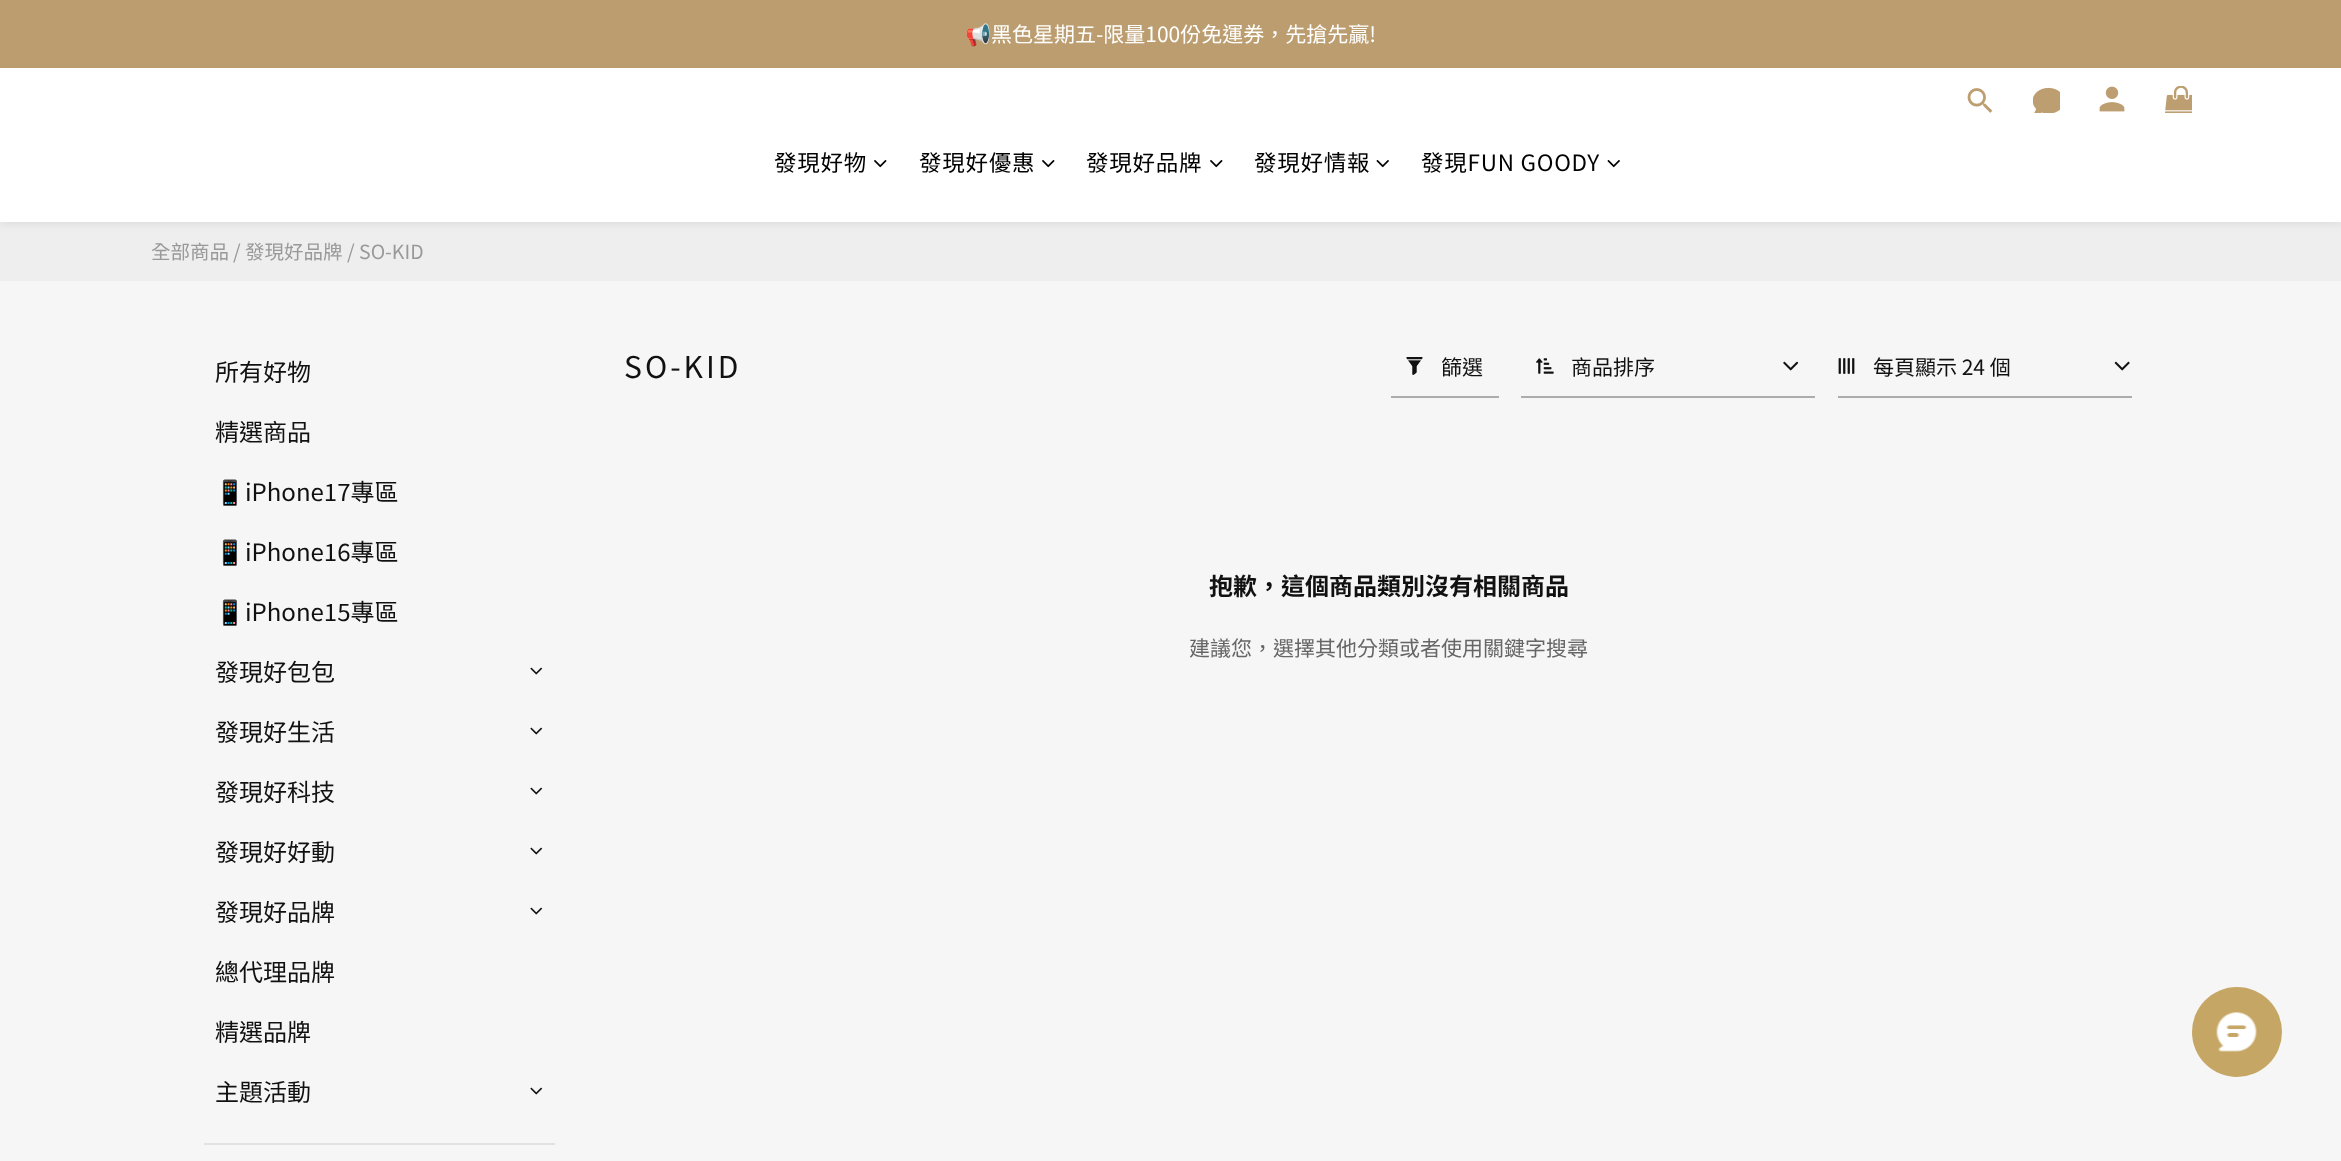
<svg xmlns="http://www.w3.org/2000/svg" width="2341" height="1161">
<rect width="100%" height="100%" fill="#f6f6f6"/>
<rect width="2341" height="68" fill="#bc9d6f"/>
<text x="965" y="42" style="font-family:Noto Color Emoji;font-size:21px;fill:#fff">📢</text>
<text x="991" y="42" style="font-family:Noto Sans TC;font-size:21px;fill:#fff">黑色星期五-限量100份免運券，先搶先贏!</text>
<rect y="222" width="2341" height="59" fill="#eee"/>
<rect y="71" width="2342" height="154" fill="#0000000f" filter="blur(4.5px)"/>
<rect y="68" width="2341" height="154" fill="#fff"/>
<image x="1967" y="88" width="26" height="25" href="media/1.png"/>
<image x="2033" y="87" width="27" height="26" href="media/2.png"/>
<image x="2099" y="86" width="26" height="26" href="media/3.png"/>
<image x="2165" y="86" width="27" height="27" href="media/4.png"/>
<text x="774" y="171" style="font-family:Noto Sans TC;font-size:22.5px;letter-spacing:0.75px;fill:#000">發現好物</text>
<image x="874" y="160" width="13" height="8" href="media/5.png"/>
<text x="919" y="171" style="font-family:Noto Sans TC;font-size:22.5px;letter-spacing:0.75px;fill:#000">發現好優惠</text>
<image x="1042" y="160" width="13" height="8" href="media/5.png"/>
<text x="1086" y="171" style="font-family:Noto Sans TC;font-size:22.5px;letter-spacing:0.75px;fill:#000">發現好品牌</text>
<image x="1210" y="160" width="13" height="8" href="media/5.png"/>
<text x="1254" y="171" style="font-family:Noto Sans TC;font-size:22.5px;letter-spacing:0.75px;fill:#000">發現好情報</text>
<image x="1376" y="160" width="13" height="8" href="media/6.png"/>
<text x="1421" y="171" style="font-family:Noto Sans TC;font-size:22.5px;letter-spacing:0.75px;fill:#000">發現FUN GOODY</text>
<image x="1607" y="160" width="13" height="8" href="media/6.png"/>
<text x="151" y="259" style="font-family:Noto Sans TC;font-size:19.5px;fill:#999">全部商品</text>
<text x="233" y="259" style="font-family:Noto Sans TC;font-size:19.5px;fill:#999">/ 發現好品牌</text>
<text x="347" y="259" style="font-family:Noto Sans TC;font-size:19.5px;fill:#999">/ SO-KID</text>
<text x="215" y="381" style="font-family:Noto Sans TC;font-size:24px;fill:#111">所有好物</text>
<text x="215" y="441" style="font-family:Noto Sans TC;font-size:24px;fill:#111">精選商品</text>
<text x="215" y="501" style="font-family:Noto Color Emoji;font-size:24px;fill:#111">📱</text>
<text x="245" y="501" style="font-family:Noto Sans TC;font-size:24px;fill:#111">iPhone17專區</text>
<text x="215" y="561" style="font-family:Noto Color Emoji;font-size:24px;fill:#111">📱</text>
<text x="245" y="561" style="font-family:Noto Sans TC;font-size:24px;fill:#111">iPhone16專區</text>
<text x="215" y="621" style="font-family:Noto Color Emoji;font-size:24px;fill:#111">📱</text>
<text x="245" y="621" style="font-family:Noto Sans TC;font-size:24px;fill:#111">iPhone15專區</text>
<text x="215" y="681" style="font-family:Noto Sans TC;font-size:24px;fill:#111">發現好包包</text>
<image x="530" y="667" width="13" height="8" href="media/7.png"/>
<text x="215" y="741" style="font-family:Noto Sans TC;font-size:24px;fill:#111">發現好生活</text>
<image x="530" y="727" width="13" height="8" href="media/7.png"/>
<text x="215" y="801" style="font-family:Noto Sans TC;font-size:24px;fill:#111">發現好科技</text>
<image x="530" y="787" width="13" height="8" href="media/7.png"/>
<text x="215" y="861" style="font-family:Noto Sans TC;font-size:24px;fill:#111">發現好好動</text>
<image x="530" y="847" width="13" height="8" href="media/7.png"/>
<text x="215" y="921" style="font-family:Noto Sans TC;font-size:24px;fill:#111">發現好品牌</text>
<image x="530" y="907" width="13" height="8" href="media/7.png"/>
<text x="215" y="981" style="font-family:Noto Sans TC;font-size:24px;fill:#111">總代理品牌</text>
<text x="215" y="1041" style="font-family:Noto Sans TC;font-size:24px;fill:#111">精選品牌</text>
<text x="215" y="1101" style="font-family:Noto Sans TC;font-size:24px;fill:#111">主題活動</text>
<image x="530" y="1087" width="13" height="8" href="media/7.png"/>
<rect x="204" y="1143" width="351" height="2" fill="#e1e1e1"/>
<text x="624" y="378" style="font-family:Noto Sans TC;font-size:30px;letter-spacing:3px;fill:#111">SO-KID</text>
<rect x="1391" y="396" width="108" height="2" fill="#acacac"/>
<image x="1406" y="357" width="17" height="18" href="media/8.png"/>
<text x="1441" y="375" style="font-family:Noto Sans TC;font-size:21px;fill:#111">篩選</text>
<rect x="1521" y="396" width="294" height="2" fill="#acacac"/>
<image x="1536" y="358" width="18" height="16" href="media/9.png"/>
<text x="1571" y="375" style="font-family:Noto Sans TC;font-size:21px;fill:#111">商品排序</text>
<image x="1783" y="361" width="16" height="10" href="media/10.png"/>
<rect x="1838" y="396" width="294" height="2" fill="#acacac"/>
<image x="1838" y="358" width="17" height="16" href="media/11.png"/>
<text x="1873" y="375" style="font-family:Noto Sans TC;font-size:21px;fill:#111">每頁顯示 24 個</text>
<image x="2114" y="361" width="16" height="10" href="media/12.png"/>
<text x="1209" y="595" style="font-family:Noto Sans TC;font-size:24px;font-weight:bold;fill:#111">抱歉，這個商品類別沒有相關商品</text>
<text x="1189" y="656" style="font-family:Noto Sans TC;font-size:21px;fill:#666">建議您，選擇其他分類或者使用關鍵字搜尋</text>
<circle cx="2237" cy="1032" r="45" fill="#c6a664"/>
<image x="2216" y="1012" width="41" height="40" href="media/13.png"/>
</svg>
